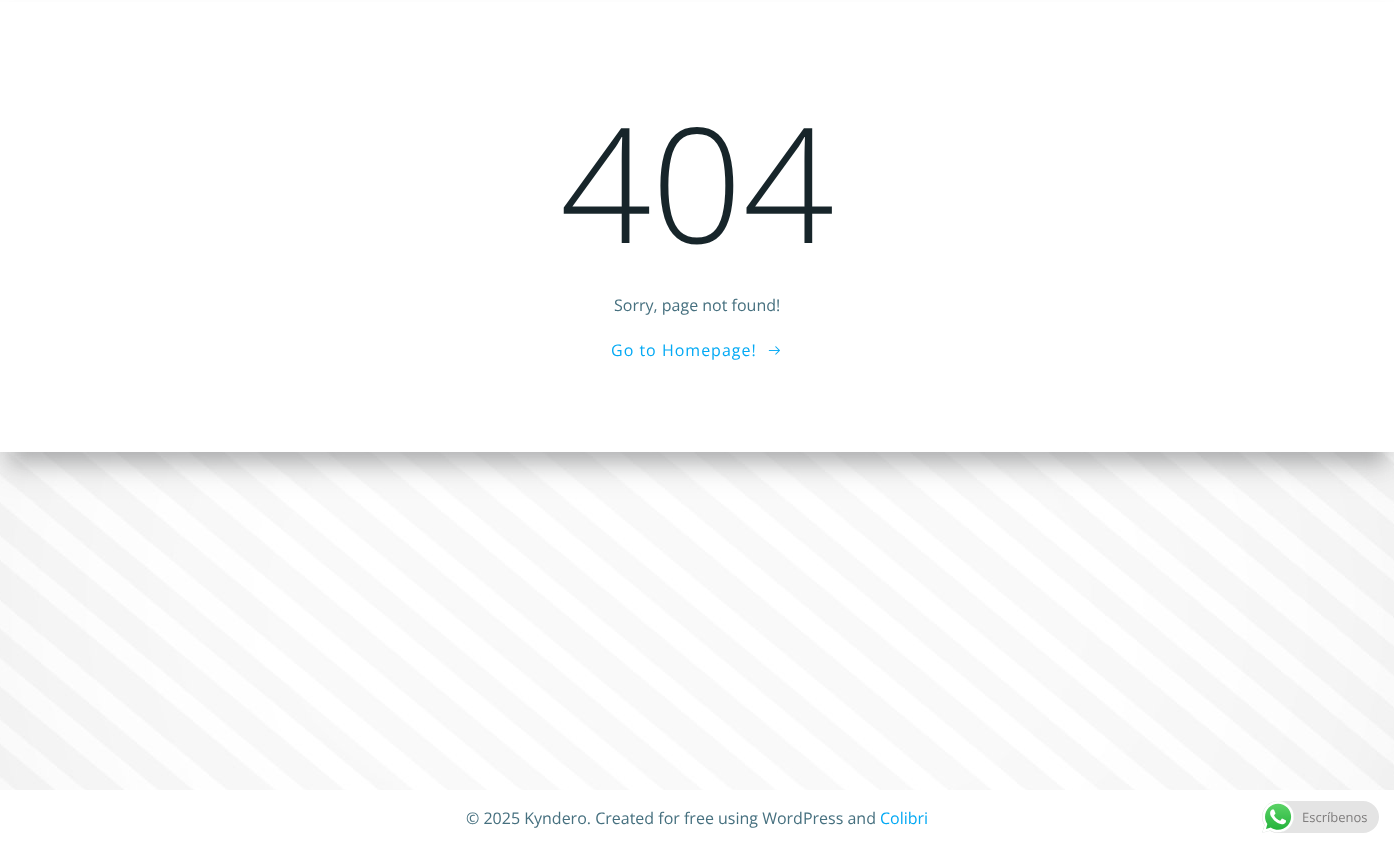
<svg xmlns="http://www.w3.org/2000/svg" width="1394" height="848">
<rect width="100%" height="100%" fill="#fff"/>
<image x="0" y="452" width="1394" height="338" href="media/1.png"/>
<rect y="20" width="1394" height="452" fill="#00000014" filter="blur(15px)"/>
<rect x="10" y="30" width="1374" height="432" fill="#3134394d" filter="blur(10px)"/>
<rect y="2" width="1394" height="450" fill="#fff"/>
<text x="560" y="243" style="font-family:Open Sans;font-size:160px;font-weight:300;fill:#17252a">404</text>
<text x="614" y="311" style="font-family:Open Sans;font-size:16px;fill:#46707f">Sorry, page not found!</text>
<text x="611" y="356" style="font-family:Open Sans;font-size:16px;letter-spacing:1px;fill:#03a9f4">Go to Homepage!</text>
<image x="768" y="346" width="12" height="9" href="media/2.png"/>
<text x="466" y="824" style="font-family:Open Sans;font-size:16px;fill:#46707f">© 2025 Kyndero. Created for free using WordPress and</text>
<text x="880" y="824" style="font-family:Open Sans;font-size:16px;fill:#03a9f4">Colibri</text>
<rect x="1262" y="801" width="117" height="32" rx="16" fill="#e4e4e4"/>
<image x="1262" y="801" width="32" height="32" href="media/3.png"/>
<text x="1302" y="822" style="font-family:Open Sans;font-size:13px;fill:#7f7d7d">Escríbenos</text>
</svg>
